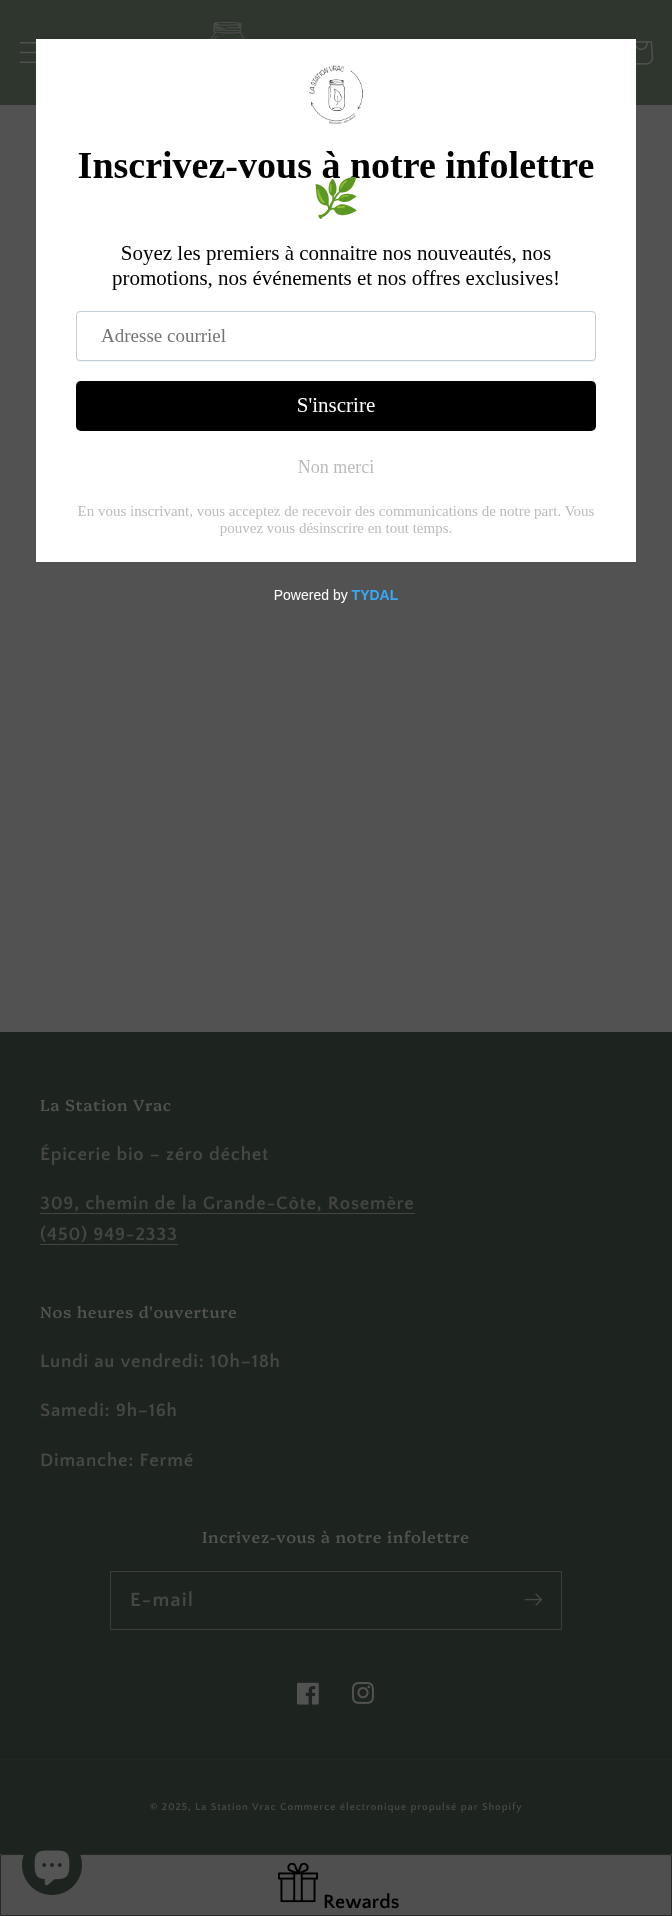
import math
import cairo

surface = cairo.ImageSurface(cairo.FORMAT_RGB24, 672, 1916)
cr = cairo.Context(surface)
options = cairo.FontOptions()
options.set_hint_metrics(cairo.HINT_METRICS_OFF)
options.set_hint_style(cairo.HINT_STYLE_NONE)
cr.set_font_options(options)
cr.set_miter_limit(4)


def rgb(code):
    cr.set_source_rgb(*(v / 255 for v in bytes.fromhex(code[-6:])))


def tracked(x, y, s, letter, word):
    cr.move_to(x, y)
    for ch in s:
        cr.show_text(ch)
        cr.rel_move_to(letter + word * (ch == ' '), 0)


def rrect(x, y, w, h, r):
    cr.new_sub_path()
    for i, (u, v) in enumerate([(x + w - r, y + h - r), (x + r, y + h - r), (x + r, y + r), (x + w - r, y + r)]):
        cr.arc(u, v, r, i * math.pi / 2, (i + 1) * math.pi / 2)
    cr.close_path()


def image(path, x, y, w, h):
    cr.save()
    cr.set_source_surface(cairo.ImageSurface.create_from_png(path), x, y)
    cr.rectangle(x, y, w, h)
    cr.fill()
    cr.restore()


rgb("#fcfafa")
cr.paint()
rgb("#8fa38a")
cr.rectangle(0, 0, 672, 105)
cr.fill()
image("img/1.png", 211, 22, 33, 17)
image("img/2.png", 19, 42, 17, 21)
image("img/3.png", 636, 41, 18, 24)
for x, y, w, h, color in [
    (0, 1032, 672, 822, "#586d5e"),
    (40, 1213, 375, 1, "#cbd0cb"),
    (40, 1244, 138, 1, "#cbd0cb"),
]:
    rgb(color)
    cr.rectangle(x, y, w, h)
    cr.fill()
cr.rectangle(110.5, 1571.5, 451, 58)
rgb("#b2bbb4")
cr.set_line_width(1)
cr.stroke()
image("img/5.png", 524, 1593, 18, 13)
image("img/6.png", 297, 1682, 22, 23)
image("img/7.png", 352, 1682, 22, 22)
rgb("#65786a")
cr.rectangle(0, 1759, 672, 1)
cr.fill()
rgb("#efefef")
rrect(0.5, 1854.5, 671, 61, 1.5)
cr.fill_preserve()
rgb("#767676")
cr.stroke()
rgb("#586d5e")
cr.arc(52, 1865, 30, 0, 2 * math.pi)
cr.fill()
image("img/8.png", 34, 1850, 36, 36)
image("img/9.png", 278, 1862, 40, 41)
cr.select_font_face("Platypi Medium")
cr.set_font_size(16)
rgb("#fcfafa")
tracked(40, 1111, "La Station Vrac", 0.6, 0)
cr.select_font_face("Quattrocento Sans", cairo.FONT_SLANT_NORMAL, cairo.FONT_WEIGHT_BOLD)
cr.set_font_size(18.75)
rgb("#d3d7d3")
tracked(40, 1160, "Épicerie bio – zéro déchet", 0.75, 0)
rgb("#cbd0cb")
tracked(40, 1209, "309, chemin de la Grande-Côte, Rosemère", 0.75, 0)
tracked(40, 1240, "(450) 949-2333", 0.75, 0)
cr.select_font_face("Platypi Medium")
cr.set_font_size(16)
rgb("#fcfafa")
tracked(40, 1318, "Nos heures d'ouverture", 0.6, 0)
cr.select_font_face("Quattrocento Sans", cairo.FONT_SLANT_NORMAL, cairo.FONT_WEIGHT_BOLD)
cr.set_font_size(18.75)
rgb("#d3d7d3")
for x, y, s in [
    (40, 1367, "Lundi au vendredi: 10h–18h"),
    (40, 1416, "Samedi: 9h–16h"),
    (40, 1466, "Dimanche: Fermé"),
]:
    tracked(x, y, s, 0.75, 0)
cr.select_font_face("Platypi Medium")
cr.set_font_size(16)
rgb("#fcfafa")
tracked(202, 1543, "Incrivez-vous à notre infolettre", 0.6, 0)
cr.select_font_face("Quattrocento Sans", cairo.FONT_SLANT_NORMAL, cairo.FONT_WEIGHT_BOLD)
cr.set_font_size(20)
rgb("#d3d7d3")
tracked(130, 1606, "E-mail", 1.25, 0)
cr.set_font_size(10.4)
tracked(150, 1810, "© 2025, La Station Vrac", 0.9, 0)
tracked(280, 1810, "Commerce électronique propulsé par Shopify", 0.9, 0)
cr.set_font_size(20)
rgb("#000000")
cr.move_to(323, 1908)
cr.show_text("Rewards")
image("img/4.png", 0, 0, 672, 1916)
surface.write_to_png("page.png")
